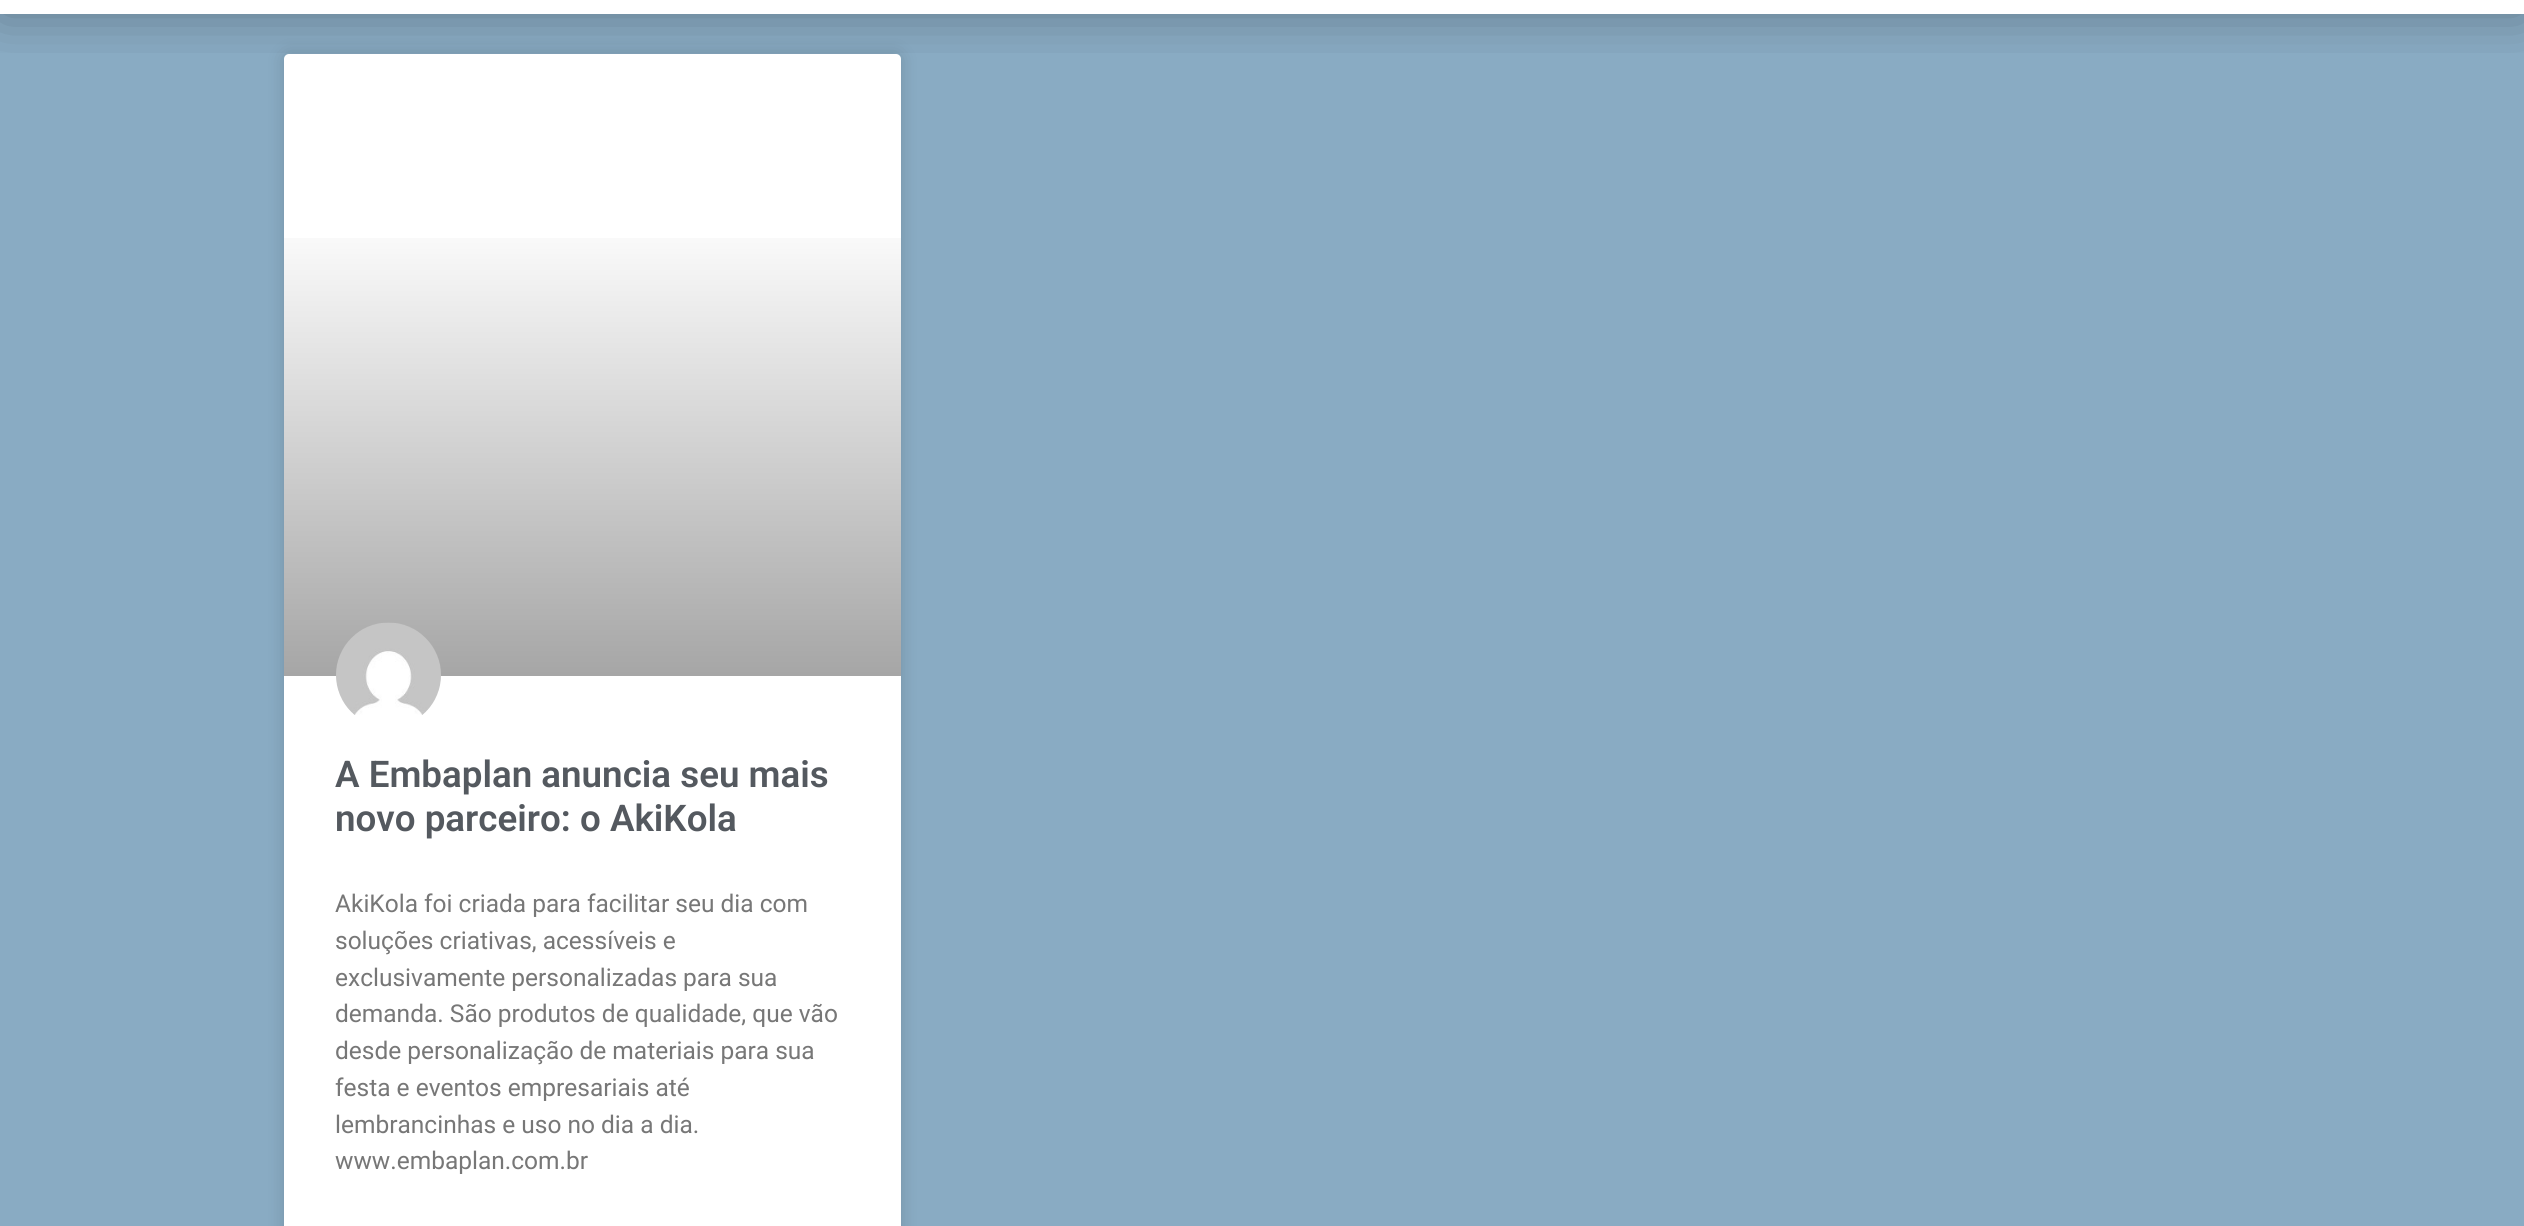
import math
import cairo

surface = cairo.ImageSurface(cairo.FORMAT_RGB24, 2524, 1226)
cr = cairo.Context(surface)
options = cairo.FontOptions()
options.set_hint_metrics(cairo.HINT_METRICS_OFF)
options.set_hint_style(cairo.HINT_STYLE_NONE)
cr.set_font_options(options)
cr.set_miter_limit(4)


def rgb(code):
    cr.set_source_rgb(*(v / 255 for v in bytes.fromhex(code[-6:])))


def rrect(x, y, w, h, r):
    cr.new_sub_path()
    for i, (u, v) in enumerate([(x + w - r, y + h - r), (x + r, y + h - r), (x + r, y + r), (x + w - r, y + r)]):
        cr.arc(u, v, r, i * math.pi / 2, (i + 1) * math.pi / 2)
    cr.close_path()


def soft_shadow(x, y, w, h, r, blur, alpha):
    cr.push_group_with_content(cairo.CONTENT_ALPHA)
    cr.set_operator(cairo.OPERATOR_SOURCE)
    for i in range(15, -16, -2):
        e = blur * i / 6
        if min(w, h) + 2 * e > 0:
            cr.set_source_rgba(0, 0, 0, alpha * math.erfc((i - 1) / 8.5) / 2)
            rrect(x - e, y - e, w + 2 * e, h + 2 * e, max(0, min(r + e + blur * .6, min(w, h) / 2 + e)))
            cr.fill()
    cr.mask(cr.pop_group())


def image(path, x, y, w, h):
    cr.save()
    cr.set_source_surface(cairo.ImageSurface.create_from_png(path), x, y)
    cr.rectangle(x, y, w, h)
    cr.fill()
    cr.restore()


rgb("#ffffff")
cr.paint()
rgb("#89abc3")
cr.rectangle(0, 14, 2524, 1212)
cr.fill()
rgb("#000000")
soft_shadow(284, 54, 617, 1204, 5, 9, 0.15)
rgb("#ffffff")
rrect(284, 54, 617, 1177, 5)
cr.fill()
cr.save()
cr.rectangle(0, 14, 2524, 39)
cr.clip()
rgb("#000000")
soft_shadow(0, -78, 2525, 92, 0, 26, 0.3)
cr.restore()
gradient = cairo.LinearGradient(592, 676, 592, 54)
gradient.add_color_stop_rgba(0, 0, 0, 0, 0.35)
gradient.add_color_stop_rgba(0.75, 0, 0, 0, 0)
cr.set_source(gradient)
cr.rectangle(284, 238, 617, 438)
cr.fill()
image("img/1.png", 336, 622, 105, 93)
cr.select_font_face("Roboto SemiBold")
cr.set_font_size(36.75)
rgb("#54595f")
cr.move_to(335, 787)
cr.show_text("A Embaplan anuncia seu mais")
cr.move_to(335, 831)
cr.show_text("novo parceiro: o AkiKola")
cr.select_font_face("Roboto")
cr.set_font_size(24.5)
rgb("#777777")
for x, y, s in [
    (335, 912, "AkiKola foi criada para facilitar seu dia com"),
    (335, 949, "soluções criativas, acessíveis e"),
    (335, 986, "exclusivamente personalizadas para sua"),
    (335, 1022, "demanda. São produtos de qualidade, que vão"),
    (335, 1059, "desde personalização de materiais para sua"),
    (335, 1096, "festa e eventos empresariais até"),
    (335, 1133, "lembrancinhas e uso no dia a dia."),
    (335, 1169, "www.embaplan.com.br"),
]:
    cr.move_to(x, y)
    cr.show_text(s)
surface.write_to_png("page.png")
